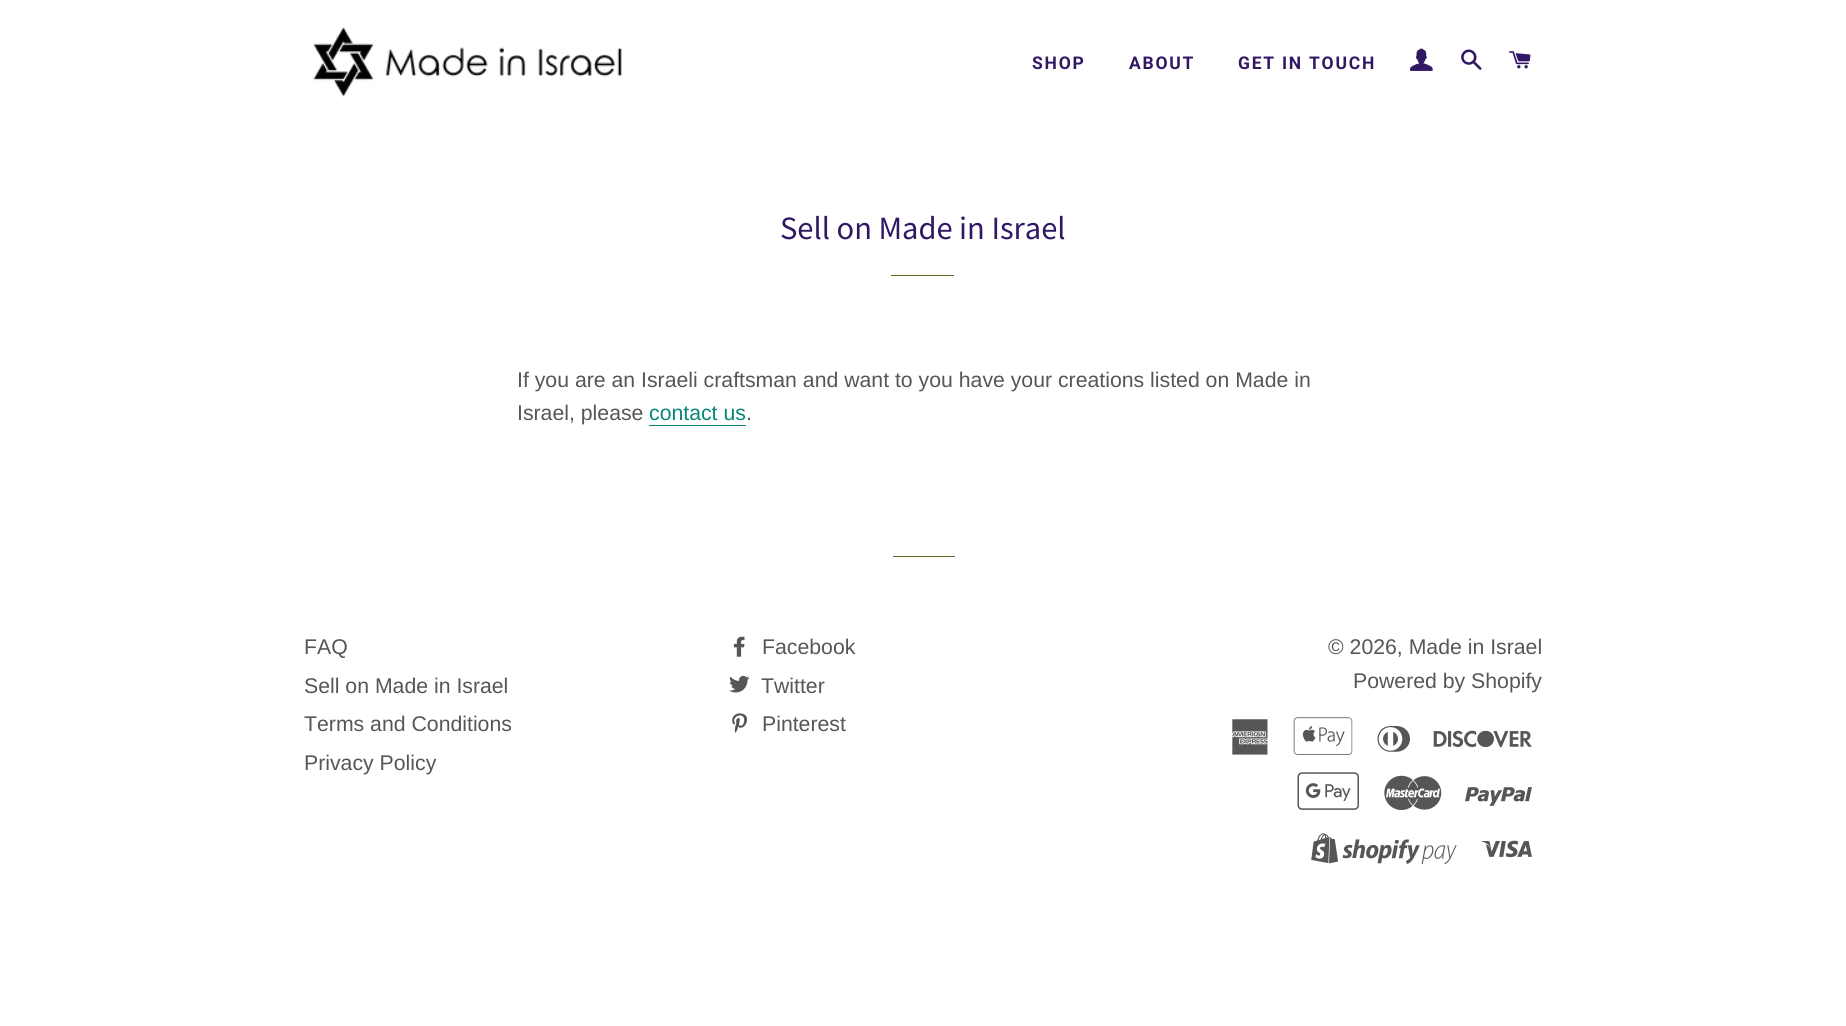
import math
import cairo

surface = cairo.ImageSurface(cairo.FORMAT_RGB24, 1846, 1026)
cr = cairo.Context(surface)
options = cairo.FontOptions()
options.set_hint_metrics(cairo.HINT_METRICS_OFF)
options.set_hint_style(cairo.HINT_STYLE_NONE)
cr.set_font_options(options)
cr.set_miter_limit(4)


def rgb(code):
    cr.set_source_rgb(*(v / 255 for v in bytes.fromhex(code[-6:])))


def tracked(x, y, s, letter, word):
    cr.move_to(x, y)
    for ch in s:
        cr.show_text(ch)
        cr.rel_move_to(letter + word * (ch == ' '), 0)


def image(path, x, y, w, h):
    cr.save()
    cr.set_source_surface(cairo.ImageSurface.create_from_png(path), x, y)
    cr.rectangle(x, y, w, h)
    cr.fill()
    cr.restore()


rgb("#ffffff")
cr.paint()
image("img/1.png", 313, 27, 309, 70)
image("img/2.png", 1410, 48, 23, 23)
image("img/3.png", 1461, 49, 21, 21)
image("img/4.png", 1509, 51, 22, 18)
for x, y, w, h, color in [
    (891, 275, 63, 1, "#646824"),
    (649, 425, 97, 1, "#058677"),
    (893, 556, 62, 1, "#646824"),
]:
    rgb(color)
    cr.rectangle(x, y, w, h)
    cr.fill()
image("img/5.png", 733, 636, 12, 21)
image("img/6.png", 729, 675, 21, 18)
image("img/7.png", 732, 713, 16, 20)
image("img/8.png", 1232, 719, 36, 36)
image("img/9.png", 1293, 717, 60, 38)
image("img/10.png", 1377, 726, 33, 26)
image("img/11.png", 1433, 730, 99, 18)
image("img/12.png", 1297, 772, 62, 38)
image("img/13.png", 1384, 775, 58, 36)
image("img/14.png", 1465, 787, 67, 19)
image("img/15.png", 1311, 833, 146, 32)
image("img/16.png", 1481, 840, 51, 18)
cr.select_font_face("Roboto", cairo.FONT_SLANT_NORMAL, cairo.FONT_WEIGHT_BOLD)
cr.set_font_size(17.5)
rgb("#321863")
for x, y, s in [
    (1032, 69, "SHOP"),
    (1129, 69, "ABOUT"),
    (1238, 69, "GET IN TOUCH"),
]:
    tracked(x, y, s, 1.75, 0)
cr.select_font_face("Source Sans Pro")
cr.set_font_size(32.5)
cr.move_to(780, 239)
cr.show_text("Sell on Made in Israel")
cr.select_font_face("Liberation Sans")
cr.set_font_size(21.25)
rgb("#565656")
cr.move_to(517, 387)
cr.show_text("If you are an Israeli craftsman and want to you have your creations listed on Made in")
cr.move_to(517, 420)
cr.show_text("Israel, please")
rgb("#058677")
cr.move_to(649, 420)
cr.show_text("contact us")
rgb("#565656")
for x, y, s in [
    (746, 420, "."),
    (304, 654, "FAQ"),
    (304, 693, "Sell on Made in Israel"),
    (304, 731, "Terms and Conditions"),
    (304, 770, "Privacy Policy"),
    (762, 654, "Facebook"),
    (761, 693, "Twitter"),
    (762, 731, "Pinterest"),
    (1328, 654, "© 2026, Made in Israel"),
    (1353, 688, "Powered by Shopify"),
]:
    cr.move_to(x, y)
    cr.show_text(s)
surface.write_to_png("page.png")
